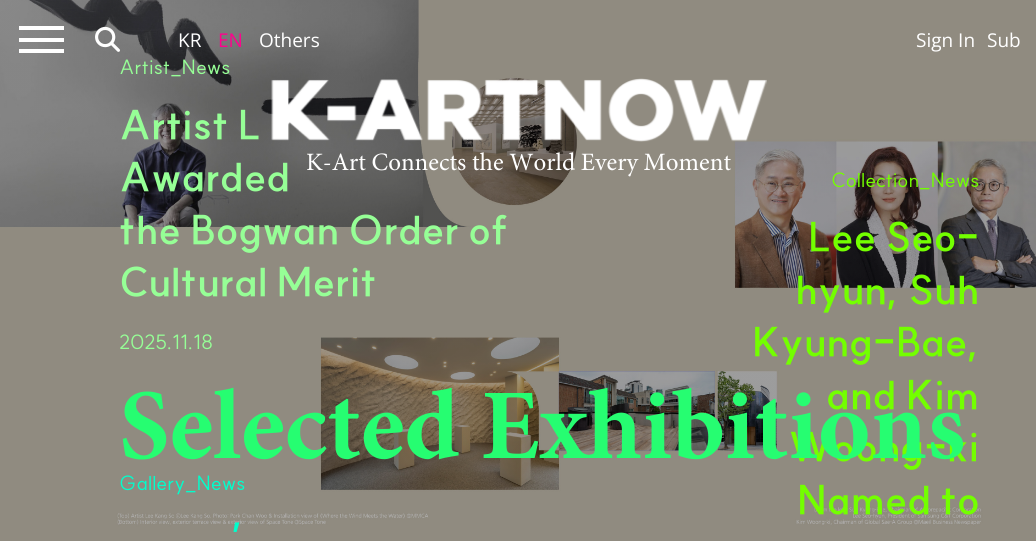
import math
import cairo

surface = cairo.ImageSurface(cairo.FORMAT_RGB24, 1036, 541)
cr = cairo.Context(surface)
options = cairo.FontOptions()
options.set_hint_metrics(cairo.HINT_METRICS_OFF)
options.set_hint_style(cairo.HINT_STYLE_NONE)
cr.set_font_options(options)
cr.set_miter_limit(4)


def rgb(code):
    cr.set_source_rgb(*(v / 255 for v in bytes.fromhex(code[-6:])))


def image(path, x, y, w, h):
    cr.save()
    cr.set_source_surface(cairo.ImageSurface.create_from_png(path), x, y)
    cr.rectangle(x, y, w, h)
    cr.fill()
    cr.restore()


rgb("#ffffff")
cr.paint()
image("img/3.png", 0, 0, 1036, 541)
for x, y, w, h, color in [
    (19, 26, 45, 4, "#ffffff"),
    (19, 38, 45, 4, "#ffffff"),
    (19, 49, 45, 4, "#ffffff"),
]:
    rgb(color)
    cr.rectangle(x, y, w, h)
    cr.fill()
image("img/1.png", 95, 26, 25, 26)
image("img/2.png", 271, 78, 496, 64)
cr.select_font_face("Open Sans")
cr.set_font_size(19)
cr.move_to(178, 47)
cr.show_text("KR")
rgb("#ff028d")
cr.move_to(218, 47)
cr.show_text("EN")
rgb("#ffffff")
for x, y, s in [
    (259, 47, "Others"),
    (916, 47, "Sign In"),
    (987, 47, "Sub"),
]:
    cr.move_to(x, y)
    cr.show_text(s)
cr.select_font_face("Minion")
cr.set_font_size(25)
cr.move_to(306, 170)
cr.show_text("K-Art Connects the World Every Moment")
cr.select_font_face("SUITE")
cr.set_font_size(20)
rgb("#96ff96")
cr.move_to(119, 74)
cr.show_text("Artist_News")
cr.select_font_face("SUITE", cairo.FONT_SLANT_NORMAL, cairo.FONT_WEIGHT_BOLD)
cr.set_font_size(40)
for x, y, s in [
    (119, 139, "Artist L"),
    (119, 191, "Awarded"),
    (119, 244, "the Bogwan Order of"),
    (119, 296, "Cultural Merit"),
]:
    cr.move_to(x, y)
    cr.show_text(s)
cr.select_font_face("SUITE")
cr.set_font_size(20)
cr.move_to(119, 349)
cr.show_text("2025.11.18")
rgb("#73ff00")
cr.move_to(831, 187)
cr.show_text("Collection_News")
cr.select_font_face("SUITE", cairo.FONT_SLANT_NORMAL, cairo.FONT_WEIGHT_BOLD)
cr.set_font_size(40)
for x, y, s in [
    (808, 251, "Lee Seo-"),
    (795, 304, "hyun, Suh"),
    (752, 356, "Kyung-Bae,"),
    (826, 409, "and Kim"),
    (788, 461, "Woong-ki"),
    (797, 514, "Named to"),
]:
    cr.move_to(x, y)
    cr.show_text(s)
cr.select_font_face("SUITE")
cr.set_font_size(20)
rgb("#00ffcc")
cr.move_to(119, 490)
cr.show_text("Gallery_News")
cr.select_font_face("SUITE", cairo.FONT_SLANT_NORMAL, cairo.FONT_WEIGHT_BOLD)
cr.set_font_size(40)
cr.move_to(231, 554)
cr.show_text("’")
cr.select_font_face("Minion", cairo.FONT_SLANT_NORMAL, cairo.FONT_WEIGHT_BOLD)
cr.set_font_size(100)
rgb("#26fd71")
cr.move_to(119, 458)
cr.show_text("Selected Exhibitions")
surface.write_to_png("page.png")
